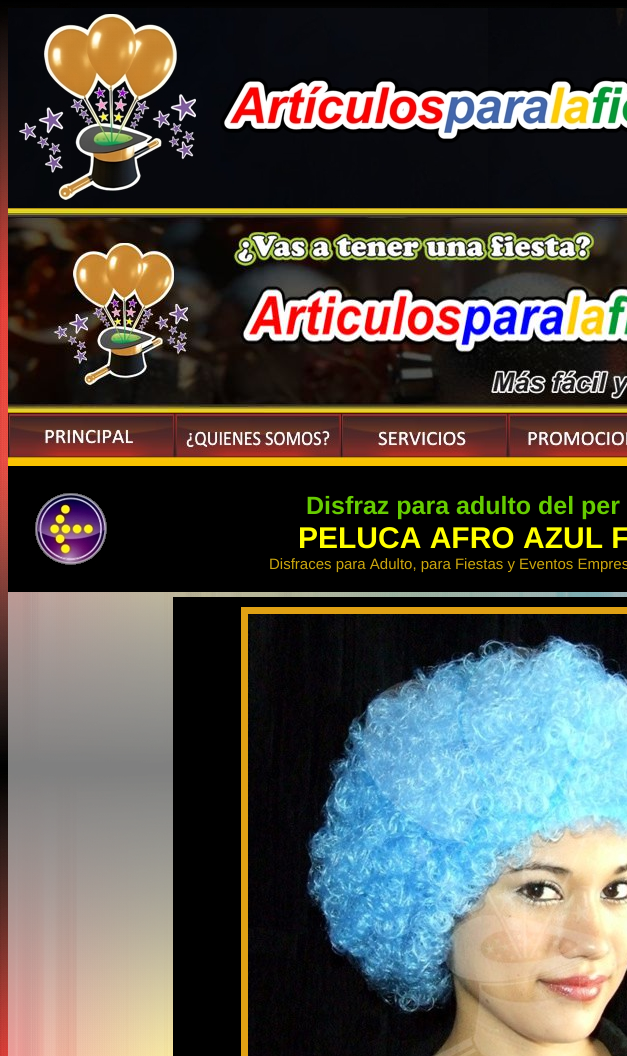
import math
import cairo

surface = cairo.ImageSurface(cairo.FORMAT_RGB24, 627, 1056)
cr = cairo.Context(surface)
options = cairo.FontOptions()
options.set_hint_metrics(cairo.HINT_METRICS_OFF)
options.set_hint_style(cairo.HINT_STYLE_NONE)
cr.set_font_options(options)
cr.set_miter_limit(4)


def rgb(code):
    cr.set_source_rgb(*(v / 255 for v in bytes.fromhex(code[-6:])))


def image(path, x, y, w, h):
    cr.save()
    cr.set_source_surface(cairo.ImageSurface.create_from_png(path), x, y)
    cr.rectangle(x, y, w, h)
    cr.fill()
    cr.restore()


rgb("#ffffff")
cr.paint()
image("img/1.png", 0, 0, 627, 1056)
image("img/2.png", 8, 8, 619, 200)
image("img/3.png", 8, 208, 619, 205)
image("img/4.png", 8, 413, 167, 53)
image("img/5.png", 175, 413, 166, 53)
image("img/6.png", 341, 413, 167, 53)
image("img/7.png", 508, 413, 119, 53)
rgb("#000000")
cr.rectangle(8, 466, 619, 126)
cr.fill()
image("img/8.png", 35, 493, 72, 72)
cr.rectangle(173, 597, 454, 459)
cr.fill()
rgb("#e0a114")
cr.rectangle(241, 607, 386, 449)
cr.fill()
image("img/9.png", 248, 614, 379, 442)
cr.select_font_face("Liberation Sans", cairo.FONT_SLANT_NORMAL, cairo.FONT_WEIGHT_BOLD)
cr.set_font_size(25)
rgb("#66cc00")
cr.move_to(306, 514)
cr.show_text("Disfraz para adulto del per")
cr.set_font_size(30)
rgb("#ffff00")
cr.move_to(298, 548)
cr.show_text("PELUCA AFRO AZUL F")
cr.select_font_face("Liberation Sans")
cr.set_font_size(15)
rgb("#cba60d")
cr.move_to(269, 569)
cr.show_text("Disfraces para Adulto, para Fiestas y Eventos Empres")
surface.write_to_png("page.png")
